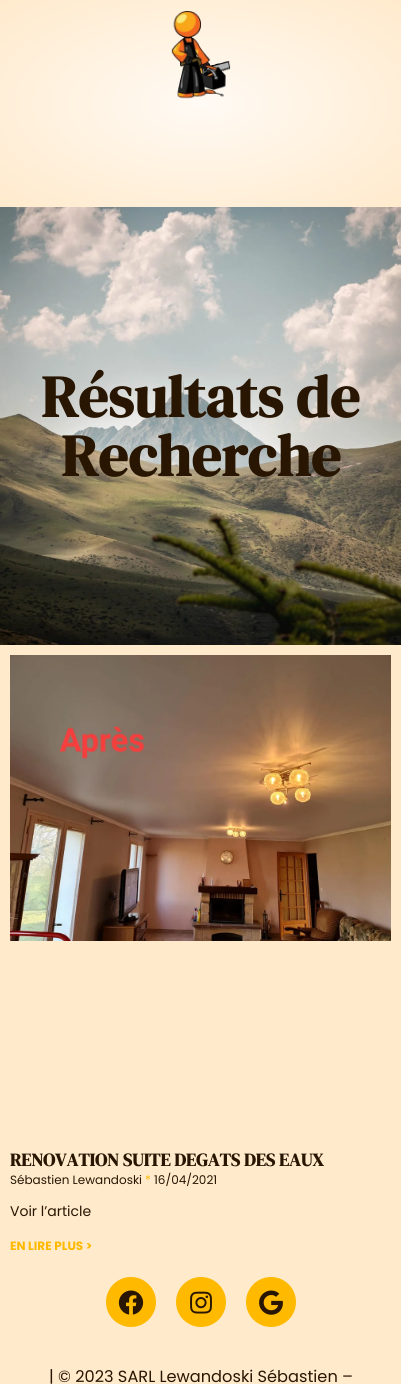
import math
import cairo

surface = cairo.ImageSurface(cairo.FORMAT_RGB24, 401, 1384)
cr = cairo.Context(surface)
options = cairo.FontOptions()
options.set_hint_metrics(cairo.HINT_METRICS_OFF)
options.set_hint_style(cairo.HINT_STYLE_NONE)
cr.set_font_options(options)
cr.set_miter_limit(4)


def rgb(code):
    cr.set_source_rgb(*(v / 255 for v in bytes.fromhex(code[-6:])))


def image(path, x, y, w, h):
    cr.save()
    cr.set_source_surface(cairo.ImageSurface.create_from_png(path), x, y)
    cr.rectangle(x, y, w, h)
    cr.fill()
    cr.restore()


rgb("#ffeacc")
cr.paint()
gradient = cairo.RadialGradient(0, 0, 0, 0, 0, 1)
gradient.set_matrix(cairo.Matrix(1 / 284, 0, 0, 1 / 146, -1 * 201 / 284, -1 * 104 / 146))
gradient.add_color_stop_rgba(0, 1, 0.98, 0.957, 1)
gradient.add_color_stop_rgba(1, 1, 0.918, 0.8, 1)
cr.set_source(gradient)
cr.rectangle(0, 0, 401, 207)
cr.fill()
image("img/1.png", 171, 11, 60, 88)
image("img/2.png", 0, 207, 401, 438)
image("img/3.png", 10, 655, 381, 286)
rgb("#ffba00")
cr.arc(131, 1302, 25, 0, 2 * math.pi)
cr.fill()
image("img/4.png", 118, 1290, 26, 25)
cr.arc(201, 1302, 25, 0, 2 * math.pi)
cr.fill()
image("img/5.png", 190, 1291, 22, 23)
cr.arc(271, 1302, 25, 0, 2 * math.pi)
cr.fill()
image("img/6.png", 259, 1290, 24, 25)
cr.select_font_face("DM Serif Display", cairo.FONT_SLANT_NORMAL, cairo.FONT_WEIGHT_BOLD)
cr.set_font_size(59)
rgb("#281602")
cr.move_to(41, 417)
cr.show_text("Résultats de")
cr.move_to(61, 476)
cr.show_text("Recherche")
cr.set_font_size(18)
cr.move_to(10, 1166)
cr.show_text("RENOVATION SUITE DEGATS DES EAUX")
cr.select_font_face("Poppins")
cr.set_font_size(12)
cr.move_to(10, 1184)
cr.show_text("Sébastien Lewandoski")
rgb("#ffba00")
cr.move_to(145, 1184)
cr.show_text("*")
rgb("#281602")
cr.move_to(154, 1184)
cr.show_text("16/04/2021")
cr.set_font_size(14)
cr.move_to(10, 1216)
cr.show_text("Voir l’article")
cr.select_font_face("Poppins", cairo.FONT_SLANT_NORMAL, cairo.FONT_WEIGHT_BOLD)
cr.set_font_size(12)
rgb("#ffba00")
cr.move_to(10, 1250)
cr.show_text("EN LIRE PLUS >")
cr.select_font_face("Poppins")
cr.set_font_size(16.2)
rgb("#281602")
cr.move_to(49, 1382)
cr.show_text("| © 2023 SARL Lewandoski Sébastien –")
surface.write_to_png("page.png")
